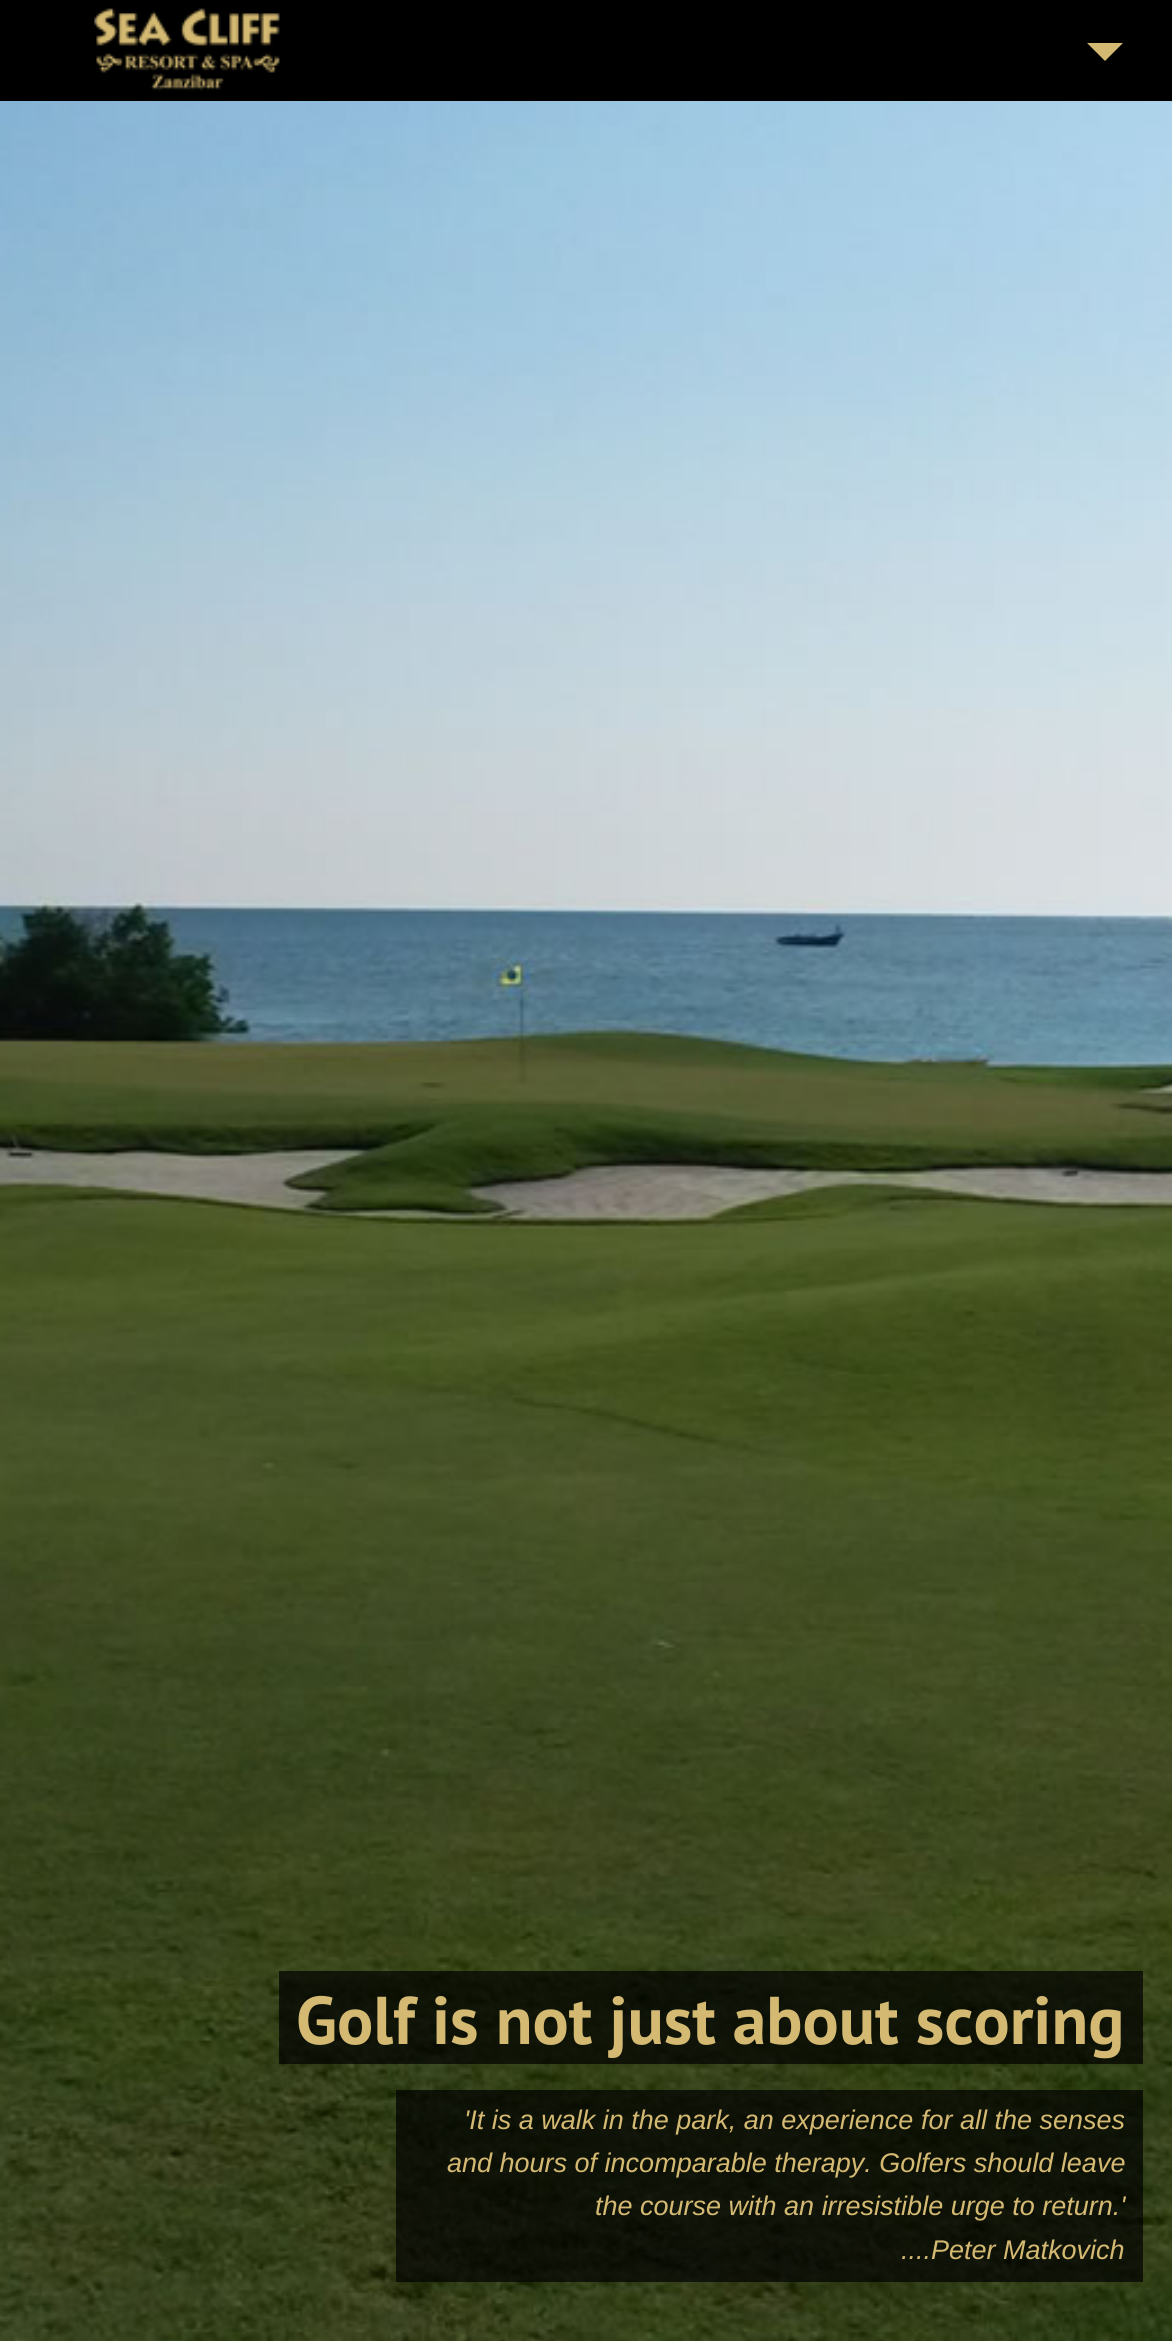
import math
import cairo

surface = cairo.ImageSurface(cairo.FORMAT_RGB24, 1172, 2341)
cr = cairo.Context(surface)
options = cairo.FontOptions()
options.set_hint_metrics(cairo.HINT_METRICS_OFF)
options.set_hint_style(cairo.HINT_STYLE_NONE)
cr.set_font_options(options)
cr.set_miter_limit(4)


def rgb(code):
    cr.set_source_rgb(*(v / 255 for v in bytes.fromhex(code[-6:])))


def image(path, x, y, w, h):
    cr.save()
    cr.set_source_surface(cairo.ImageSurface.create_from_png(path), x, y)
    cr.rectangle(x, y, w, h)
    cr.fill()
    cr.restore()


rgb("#ffffff")
cr.paint()
rgb("#000000")
cr.rectangle(0, 0, 1172, 101)
cr.fill()
image("img/1.png", 94, 8, 186, 83)
rgb("#d4b972")
cr.new_path()
cr.move_to(1087, 43)
cr.line_to(1123, 43)
cr.line_to(1105, 61)
cr.close_path()
cr.fill()
image("img/2.png", 0, 101, 1172, 2240)
cr.set_source_rgba(0, 0, 0, 0.7)
cr.rectangle(279, 1971, 864, 93)
cr.fill()
cr.rectangle(396, 2090, 747, 192)
cr.fill()
cr.select_font_face("PT Sans", cairo.FONT_SLANT_NORMAL, cairo.FONT_WEIGHT_BOLD)
cr.set_font_size(67.5)
rgb("#d4b972")
cr.move_to(296, 2044)
cr.show_text("Golf is not just about scoring")
cr.select_font_face("Liberation Sans", cairo.FONT_SLANT_ITALIC)
cr.set_font_size(27)
for x, y, s in [
    (464, 2129, "'It is a walk in the park, an experience for all the senses"),
    (447, 2172, "and hours of incomparable therapy. Golfers should leave"),
    (595, 2215, "the course with an irresistible urge to return.'"),
    (901, 2259, "....Peter Matkovich"),
]:
    cr.move_to(x, y)
    cr.show_text(s)
surface.write_to_png("page.png")
